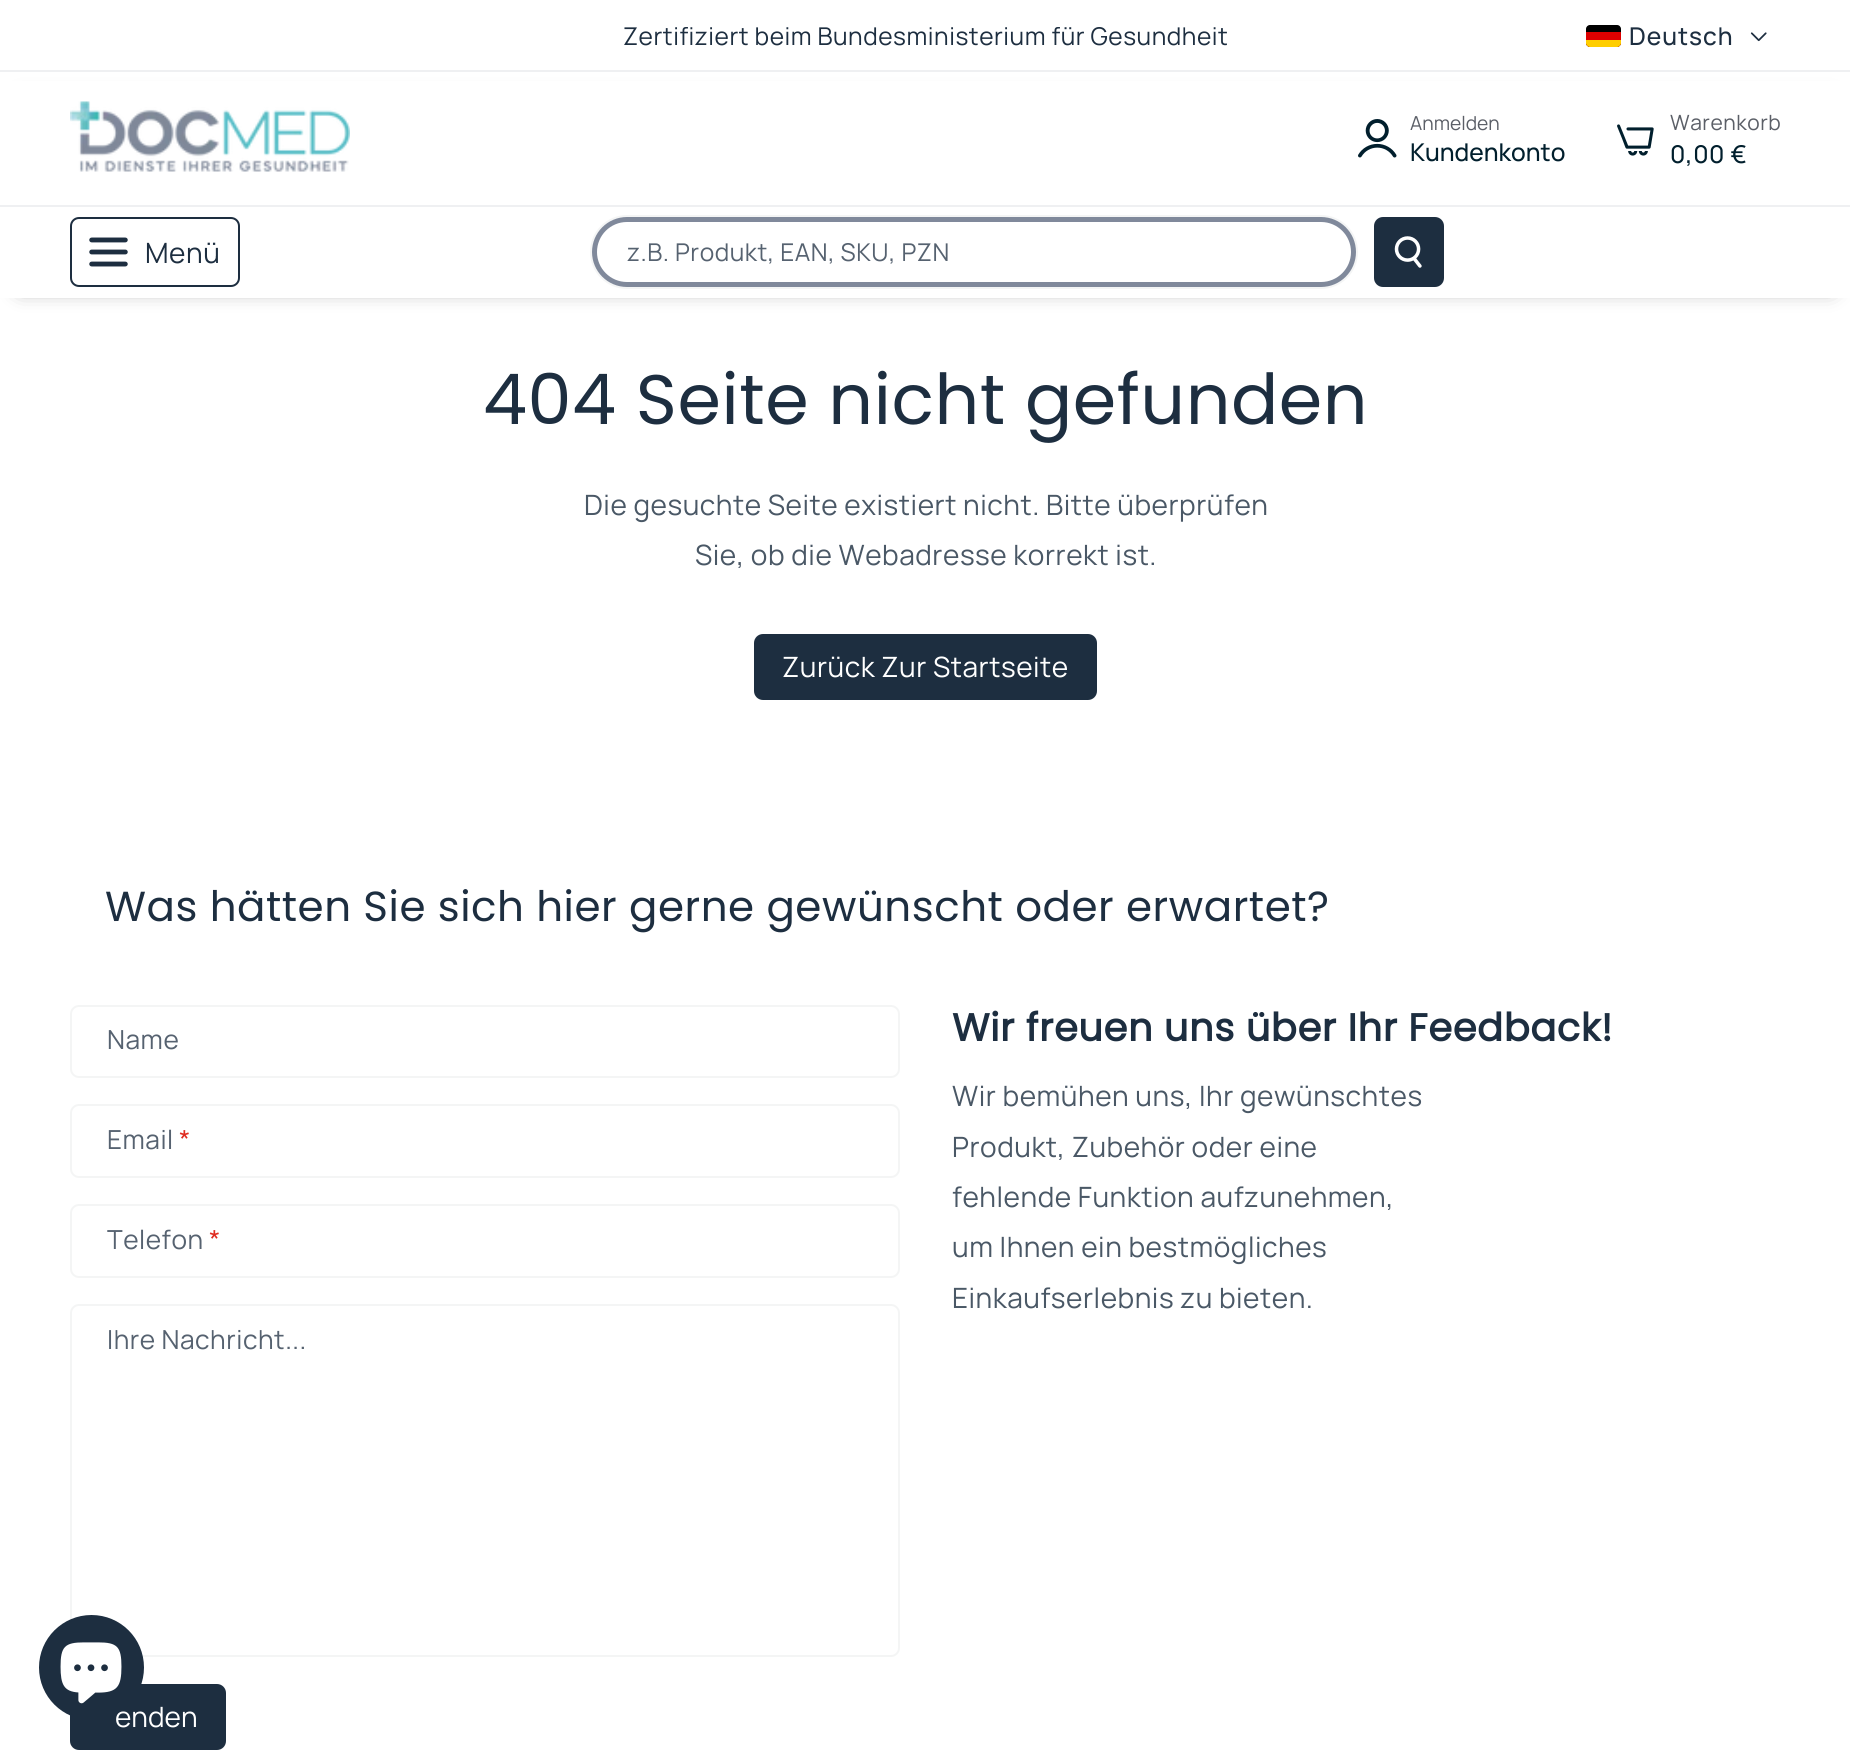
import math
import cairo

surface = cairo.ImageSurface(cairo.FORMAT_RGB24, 1850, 1757)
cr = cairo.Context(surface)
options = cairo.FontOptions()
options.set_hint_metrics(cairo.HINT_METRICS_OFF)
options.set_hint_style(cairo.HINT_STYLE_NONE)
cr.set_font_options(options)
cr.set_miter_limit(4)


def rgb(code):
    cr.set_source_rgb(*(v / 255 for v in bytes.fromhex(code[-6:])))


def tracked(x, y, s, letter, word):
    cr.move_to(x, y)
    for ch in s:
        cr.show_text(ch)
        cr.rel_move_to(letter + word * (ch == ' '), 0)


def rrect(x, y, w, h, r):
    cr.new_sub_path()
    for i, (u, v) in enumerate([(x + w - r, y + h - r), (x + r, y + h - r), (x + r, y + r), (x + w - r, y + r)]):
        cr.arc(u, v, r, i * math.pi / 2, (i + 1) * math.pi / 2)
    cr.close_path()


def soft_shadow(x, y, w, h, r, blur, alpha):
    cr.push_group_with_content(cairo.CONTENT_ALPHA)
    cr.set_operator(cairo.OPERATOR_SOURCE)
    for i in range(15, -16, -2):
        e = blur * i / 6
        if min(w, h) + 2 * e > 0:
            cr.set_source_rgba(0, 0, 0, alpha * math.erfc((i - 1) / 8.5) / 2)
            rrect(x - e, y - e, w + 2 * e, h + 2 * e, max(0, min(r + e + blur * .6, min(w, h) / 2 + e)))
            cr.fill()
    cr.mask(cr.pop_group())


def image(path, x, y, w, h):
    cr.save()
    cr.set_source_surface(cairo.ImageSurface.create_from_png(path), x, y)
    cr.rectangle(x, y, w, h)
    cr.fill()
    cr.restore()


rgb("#ffffff")
cr.paint()
rgb("#eff0f2")
cr.rectangle(0, 70, 1850, 2)
cr.fill()
rgb("#000000")
rrect(1586, 25, 35, 22, 4)
cr.fill()
rgb("#dd0000")
cr.new_path()
cr.move_to(1586, 32)
cr.line_to(1621, 32)
cr.line_to(1621, 43)
cr.curve_to(1621, 45, 1619, 47, 1617, 47)
cr.line_to(1590, 47)
cr.curve_to(1588, 47, 1586, 45, 1586, 43)
cr.close_path()
cr.fill()
rgb("#ffce00")
cr.new_path()
cr.move_to(1586, 40)
cr.line_to(1621, 40)
cr.line_to(1621, 43)
cr.curve_to(1621, 45, 1619, 47, 1617, 47)
cr.line_to(1590, 47)
cr.curve_to(1588, 47, 1586, 45, 1586, 43)
cr.close_path()
cr.fill()
image("img/1.png", 1750, 32, 17, 10)
rgb("#121212")
soft_shadow(21, 103, 1810, 184, 0, 10.5, 0.6)
rgb("#ffffff")
cr.rectangle(0, 81, 1850, 217)
cr.fill()
image("img/2.png", 70, 101, 280, 71)
image("img/3.png", 1358, 119, 39, 39)
image("img/4.png", 1617, 124, 37, 32)
rgb("#eff0f2")
cr.rectangle(0, 205, 1850, 2)
cr.fill()
rrect(71, 218, 168, 68, 8)
rgb("#1d2e40")
cr.stroke()
image("img/5.png", 89, 237, 39, 30)
rrect(591, 216, 766, 72, 36)
rgb("#f4f5f5")
cr.stroke()
rrect(594.5, 219.5, 759, 65, 32.5)
rgb("#80899b")
cr.set_line_width(5)
cr.stroke()
rgb("#1d2e40")
rrect(1374, 217, 70, 70, 9)
cr.fill()
image("img/6.png", 1394, 236, 28, 32)
rrect(754, 634, 343, 66, 9)
cr.fill()
rrect(71, 1006, 828, 71, 8)
rgb("#f4f5f5")
cr.set_line_width(2)
cr.stroke()
rrect(71, 1105, 828, 72, 8)
cr.stroke()
rrect(71, 1205, 828, 72, 8)
cr.stroke()
rrect(71, 1305, 828, 351, 8)
cr.stroke()
rgb("#1d2e40")
rrect(70, 1684, 156, 66, 9)
cr.fill()
cr.select_font_face("Manrope")
cr.set_font_size(24.5)
tracked(623, 45, "Zertifiziert beim Bundesministerium für Gesundheit", 0.53, 0)
cr.select_font_face("Manrope Medium")
tracked(1629, 45, "Deutsch", 1, 0)
cr.select_font_face("Manrope")
cr.set_font_size(19.25)
rgb("#5b5f67")
cr.move_to(1410, 130)
cr.show_text("Anmelden")
cr.select_font_face("Manrope Medium")
cr.set_font_size(24.5)
rgb("#011f2d")
cr.move_to(1410, 161)
cr.show_text("Kundenkonto")
cr.select_font_face("Manrope")
cr.set_font_size(21)
rgb("#5b5f67")
tracked(1670, 130, "Warenkorb", 0.53, 0)
cr.select_font_face("Manrope Medium")
cr.set_font_size(24.5)
rgb("#011f2d")
tracked(1670, 163, "0,00 €", 0.53, 0)
cr.select_font_face("Manrope")
cr.set_font_size(28)
rgb("#1d2e40")
tracked(145, 263, "Menü", 0.53, 0)
cr.set_font_size(24.5)
rgb("#566270")
tracked(627, 261, "z.B. Produkt, EAN, SKU, PZN", 0.53, 0)
cr.select_font_face("Poppins")
cr.set_font_size(70)
rgb("#1d2e40")
tracked(483, 424, "404 Seite nicht gefunden", 0.53, 0)
cr.select_font_face("Manrope")
cr.set_font_size(28)
rgb("#4a5866")
tracked(584, 515, "Die gesuchte Seite existiert nicht. Bitte überprüfen", 0.53, 0)
tracked(695, 565, "Sie, ob die Webadresse korrekt ist.", 0.53, 0)
rgb("#ffffff")
tracked(782, 677, "Zurück Zur Startseite", 0.53, 0)
cr.select_font_face("Poppins")
cr.set_font_size(42)
rgb("#1d2e40")
tracked(105, 921, "Was hätten Sie sich hier gerne gewünscht oder erwartet?", 0.53, 0)
cr.select_font_face("Manrope")
cr.set_font_size(26.25)
rgb("#566270")
tracked(107, 1049, "Name", 0.53, 0)
tracked(107, 1149, "Email", 0.53, 0)
rgb("#df2c21")
tracked(179, 1149, "*", 0.53, 0)
rgb("#566270")
tracked(107, 1249, "Telefon", 0.53, 0)
rgb("#df2c21")
tracked(209, 1249, "*", 0.53, 0)
rgb("#566270")
tracked(107, 1349, "Ihre Nachricht...", 0.53, 0)
cr.set_font_size(28)
rgb("#ffffff")
cr.move_to(115, 1727)
cr.show_text("enden")
rgb("#1d2e40")
cr.new_path()
cr.arc(91.5, 1667.5, 52.5, 0, 2 * math.pi)
cr.fill()
image("img/7.png", 60, 1642, 62, 62)
cr.select_font_face("Poppins", cairo.FONT_SLANT_NORMAL, cairo.FONT_WEIGHT_BOLD)
cr.set_font_size(38.5)
tracked(952, 1041, "Wir freuen uns über Ihr Feedback!", 0.53, 0)
cr.select_font_face("Manrope")
cr.set_font_size(28)
rgb("#4a5866")
for x, y, s in [
    (952, 1106, "Wir bemühen uns, Ihr gewünschtes"),
    (952, 1157, "Produkt, Zubehör oder eine"),
    (952, 1207, "fehlende Funktion aufzunehmen,"),
    (952, 1257, "um Ihnen ein bestmögliches"),
    (952, 1308, "Einkaufserlebnis zu bieten."),
]:
    tracked(x, y, s, 0.53, 0)
surface.write_to_png("page.png")
